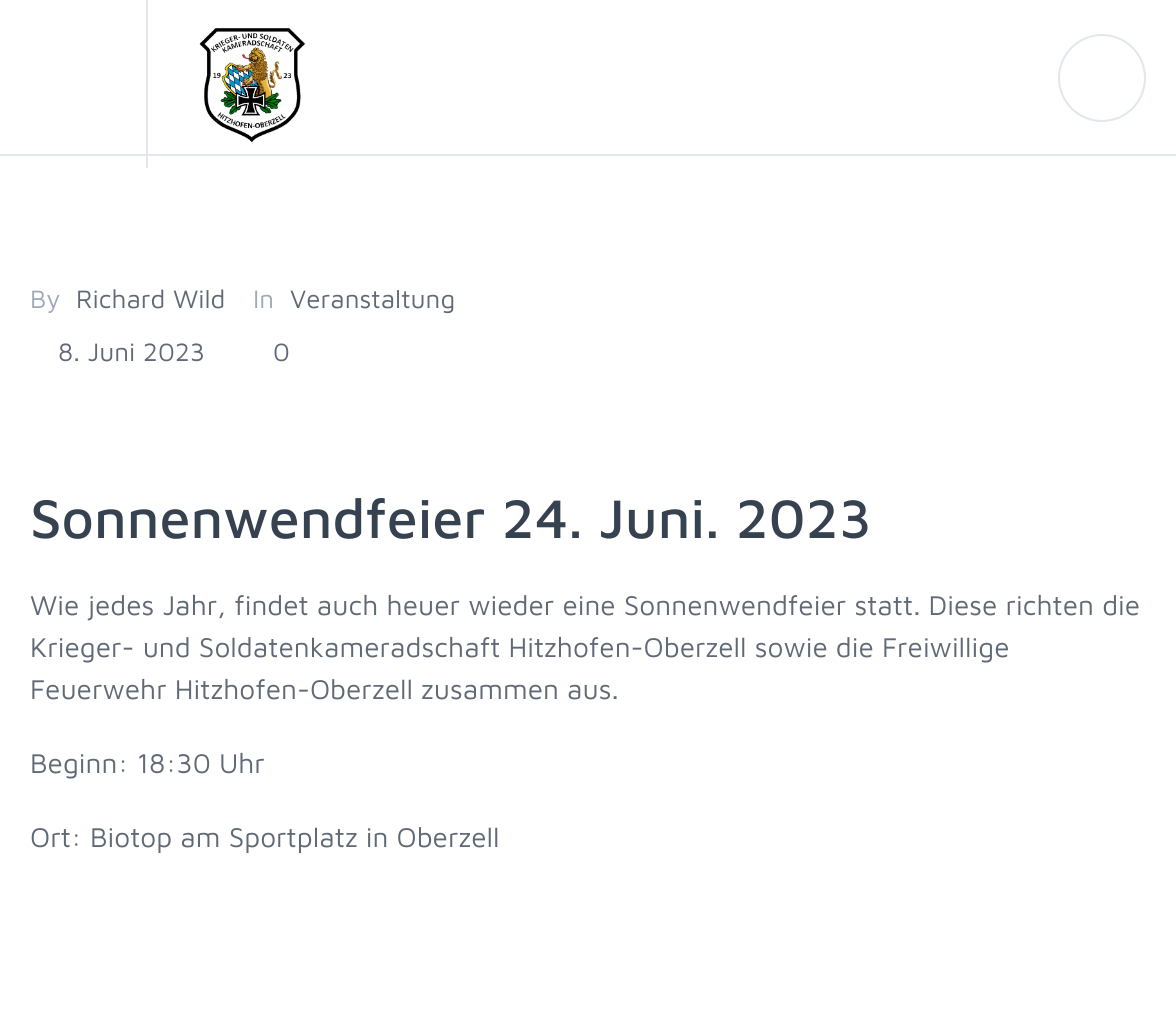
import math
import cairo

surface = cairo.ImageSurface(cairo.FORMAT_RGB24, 1176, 1034)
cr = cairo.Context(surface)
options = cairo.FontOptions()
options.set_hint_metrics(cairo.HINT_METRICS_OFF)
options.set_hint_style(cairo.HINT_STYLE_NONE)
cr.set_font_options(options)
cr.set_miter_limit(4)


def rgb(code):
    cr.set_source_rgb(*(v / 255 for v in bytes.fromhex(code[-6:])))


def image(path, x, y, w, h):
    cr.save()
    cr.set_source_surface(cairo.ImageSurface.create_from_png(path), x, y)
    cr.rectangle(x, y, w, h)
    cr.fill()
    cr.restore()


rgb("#ffffff")
cr.paint()
rgb("#e1e7ec")
cr.rectangle(0, 154, 1176, 2)
cr.fill()
cr.rectangle(146, 0, 2, 168)
cr.fill()
image("img/1.png", 199, 28, 107, 114)
cr.arc(1102, 78, 43, 0, 2 * math.pi)
cr.stroke()
cr.select_font_face("Maven Pro")
cr.set_font_size(26)
rgb("#9da9b9")
cr.move_to(30, 308)
cr.show_text("By")
rgb("#606975")
cr.move_to(76, 308)
cr.show_text("Richard Wild")
rgb("#9da9b9")
cr.move_to(253, 308)
cr.show_text("In")
rgb("#606975")
for x, y, s in [
    (290, 308, "Veranstaltung"),
    (58, 361, "8. Juni 2023"),
    (273, 361, "0"),
]:
    cr.move_to(x, y)
    cr.show_text(s)
cr.select_font_face("Maven Pro Medium")
cr.set_font_size(56)
rgb("#374250")
cr.move_to(30, 538)
cr.show_text("Sonnenwendfeier 24. Juni. 2023")
cr.select_font_face("Maven Pro")
cr.set_font_size(28)
rgb("#606975")
for x, y, s in [
    (30, 615, "Wie jedes Jahr, findet auch heuer wieder eine Sonnenwendfeier statt. Diese richten die"),
    (30, 657, "Krieger- und Soldatenkameradschaft Hitzhofen-Oberzell sowie die Freiwillige"),
    (30, 699, "Feuerwehr Hitzhofen-Oberzell zusammen aus."),
    (30, 773, "Beginn: 18:30 Uhr"),
    (30, 847, "Ort: Biotop am Sportplatz in Oberzell"),
]:
    cr.move_to(x, y)
    cr.show_text(s)
surface.write_to_png("page.png")
